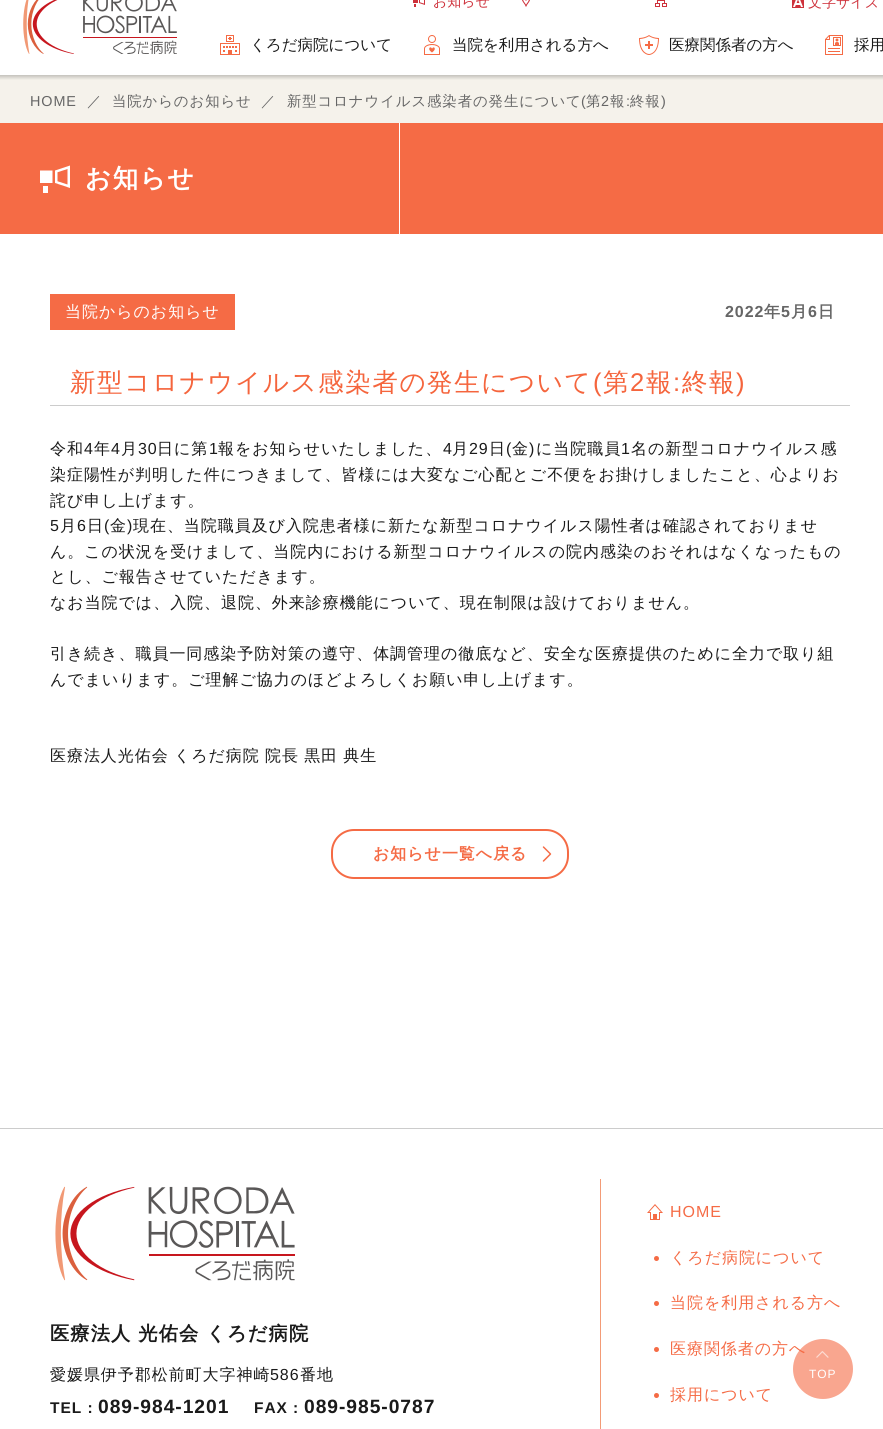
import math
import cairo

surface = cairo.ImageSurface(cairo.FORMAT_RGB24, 883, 1429)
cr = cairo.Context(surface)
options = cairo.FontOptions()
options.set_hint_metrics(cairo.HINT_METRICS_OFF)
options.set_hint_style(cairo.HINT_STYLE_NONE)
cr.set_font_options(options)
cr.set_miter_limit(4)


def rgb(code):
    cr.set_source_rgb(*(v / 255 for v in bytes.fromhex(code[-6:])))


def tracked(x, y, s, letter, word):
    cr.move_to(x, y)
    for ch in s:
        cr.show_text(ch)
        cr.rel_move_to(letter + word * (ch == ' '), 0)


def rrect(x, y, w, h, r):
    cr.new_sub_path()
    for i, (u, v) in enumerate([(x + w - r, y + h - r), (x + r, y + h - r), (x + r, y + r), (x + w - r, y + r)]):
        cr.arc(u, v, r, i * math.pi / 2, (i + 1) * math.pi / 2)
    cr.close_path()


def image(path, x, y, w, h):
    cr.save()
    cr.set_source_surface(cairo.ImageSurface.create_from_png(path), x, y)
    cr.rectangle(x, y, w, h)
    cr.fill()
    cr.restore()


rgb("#ffffff")
cr.paint()
image("img/1.png", 23, 0, 154, 54)
image("img/2.png", 413, 0, 12, 7)
image("img/3.png", 522, 0, 8, 7)
image("img/4.png", 655, 0, 12, 7)
image("img/5.png", 792, 0, 12, 8)
image("img/6.png", 220, 35, 20, 20)
image("img/7.png", 424, 35, 16, 20)
image("img/8.png", 639, 35, 20, 20)
image("img/9.png", 825, 35, 18, 20)
gradient = cairo.LinearGradient(600, 75, 600, 80)
gradient.add_color_stop_rgba(0, 0.769, 0.761, 0.737, 1)
gradient.add_color_stop_rgba(1, 0.961, 0.949, 0.922, 1)
cr.set_source(gradient)
cr.rectangle(0, 75, 883, 5)
cr.fill()
for x, y, w, h, color in [
    (0, 80, 883, 43, "#f5f2eb"),
    (0, 1128, 883, 1, "#cccccc"),
    (0, 123, 883, 111, "#f56b45"),
    (399, 123, 1, 111, "#ffffff"),
]:
    rgb(color)
    cr.rectangle(x, y, w, h)
    cr.fill()
image("img/10.png", 40, 165, 30, 28)
rgb("#f56b45")
cr.rectangle(50, 294, 185, 36)
cr.fill()
rgb("#cccccc")
cr.rectangle(50, 405, 800, 1)
cr.fill()
rrect(332, 830, 236, 48, 22)
rgb("#f56b45")
cr.stroke()
image("img/11.png", 542, 846, 10, 16)
rgb("#f39b76")
cr.rectangle(600, 1179, 1, 250)
cr.fill()
image("img/12.png", 55, 1186, 240, 95)
image("img/13.png", 647, 1204, 16, 16)
rgb("#f56b45")
cr.arc(656.5, 1258.5, 2.5, 0, 2 * math.pi)
cr.fill()
cr.arc(656.5, 1303.5, 2.5, 0, 2 * math.pi)
cr.fill()
cr.arc(656.5, 1349.5, 2.5, 0, 2 * math.pi)
cr.fill()
cr.arc(656.5, 1395.5, 2.5, 0, 2 * math.pi)
cr.fill()
cr.select_font_face("WenQuanYi Zen Hei Medium")
cr.set_font_size(14)
rgb("#ce313b")
cr.move_to(433, 6)
cr.show_text("お知らせ")
cr.move_to(808, 7)
cr.show_text("文字サイズ")
cr.set_font_size(15.5)
rgb("#1a1a1a")
for x, y, s in [
    (250, 50, "くろだ病院について"),
    (452, 50, "当院を利用される方へ"),
    (669, 50, "医療関係者の方へ"),
    (854, 50, "採用"),
]:
    cr.move_to(x, y)
    cr.show_text(s)
cr.select_font_face("Liberation Sans")
cr.set_font_size(14.4)
rgb("#666666")
tracked(30, 106, "HOME", 0.9, 0)
cr.select_font_face("WenQuanYi Zen Hei Medium")
for x, y, s in [
    (87, 106, "／"),
    (112, 106, "当院からのお知らせ"),
    (261, 106, "／"),
    (287, 106, "新型コロナウイルス感染者の発生について"),
]:
    tracked(x, y, s, 0.9, 0)
cr.select_font_face("Liberation Sans")
tracked(581, 106, "(", 0.9, 0)
cr.select_font_face("WenQuanYi Zen Hei Medium")
tracked(586, 106, "第", 0.9, 0)
cr.select_font_face("Liberation Sans")
tracked(601, 106, "2", 0.9, 0)
cr.select_font_face("WenQuanYi Zen Hei Medium")
tracked(610, 106, "報", 0.9, 0)
cr.select_font_face("Liberation Sans")
tracked(626, 106, ":", 0.9, 0)
cr.select_font_face("WenQuanYi Zen Hei Medium")
tracked(630, 106, "終報", 0.9, 0)
cr.select_font_face("Liberation Sans")
tracked(661, 106, ")", 0.9, 0)
cr.select_font_face("WenQuanYi Zen Hei", cairo.FONT_SLANT_NORMAL, cairo.FONT_WEIGHT_BOLD)
cr.set_font_size(25.6)
rgb("#ffffff")
tracked(85, 187, "お知らせ", 1.5, 0)
cr.select_font_face("WenQuanYi Zen Hei Medium")
cr.set_font_size(16)
tracked(65, 317, "当院からのお知らせ", 0.95, 0)
cr.select_font_face("Liberation Sans", cairo.FONT_SLANT_NORMAL, cairo.FONT_WEIGHT_BOLD)
rgb("#666666")
tracked(725, 317, "2022", 0.95, 0)
cr.select_font_face("WenQuanYi Zen Hei", cairo.FONT_SLANT_NORMAL, cairo.FONT_WEIGHT_BOLD)
tracked(764, 317, "年", 0.95, 0)
cr.select_font_face("Liberation Sans", cairo.FONT_SLANT_NORMAL, cairo.FONT_WEIGHT_BOLD)
tracked(781, 317, "5", 0.95, 0)
cr.select_font_face("WenQuanYi Zen Hei", cairo.FONT_SLANT_NORMAL, cairo.FONT_WEIGHT_BOLD)
tracked(791, 317, "月", 0.95, 0)
cr.select_font_face("Liberation Sans", cairo.FONT_SLANT_NORMAL, cairo.FONT_WEIGHT_BOLD)
tracked(808, 317, "6", 0.95, 0)
cr.select_font_face("WenQuanYi Zen Hei", cairo.FONT_SLANT_NORMAL, cairo.FONT_WEIGHT_BOLD)
tracked(818, 317, "日", 0.95, 0)
cr.select_font_face("WenQuanYi Zen Hei Medium")
cr.set_font_size(25.6)
rgb("#f5653d")
tracked(70, 391, "新型コロナウイルス感染者の発生について", 1.5, 0)
cr.select_font_face("Liberation Sans")
tracked(593, 391, "(", 1.5, 0)
cr.select_font_face("WenQuanYi Zen Hei Medium")
tracked(603, 391, "第", 1.5, 0)
cr.select_font_face("Liberation Sans")
tracked(630, 391, "2", 1.5, 0)
cr.select_font_face("WenQuanYi Zen Hei Medium")
tracked(646, 391, "報", 1.5, 0)
cr.select_font_face("Liberation Sans")
tracked(673, 391, ":", 1.5, 0)
cr.select_font_face("WenQuanYi Zen Hei Medium")
tracked(682, 391, "終報", 1.5, 0)
cr.select_font_face("Liberation Sans")
tracked(736, 391, ")", 1.5, 0)
cr.select_font_face("WenQuanYi Zen Hei Medium")
cr.set_font_size(16)
rgb("#1a1a1a")
tracked(50, 454, "令和", 0.95, 0)
cr.select_font_face("Liberation Sans")
tracked(84, 454, "4", 0.95, 0)
cr.select_font_face("WenQuanYi Zen Hei Medium")
tracked(94, 454, "年", 0.95, 0)
cr.select_font_face("Liberation Sans")
tracked(111, 454, "4", 0.95, 0)
cr.select_font_face("WenQuanYi Zen Hei Medium")
tracked(121, 454, "月", 0.95, 0)
cr.select_font_face("Liberation Sans")
tracked(138, 454, "30", 0.95, 0)
cr.select_font_face("WenQuanYi Zen Hei Medium")
tracked(157, 454, "日に第", 0.95, 0)
cr.select_font_face("Liberation Sans")
tracked(209, 454, "1", 0.95, 0)
cr.select_font_face("WenQuanYi Zen Hei Medium")
tracked(218, 454, "報をお知らせいたしました、", 0.95, 0)
cr.select_font_face("Liberation Sans")
tracked(443, 454, "4", 0.95, 0)
cr.select_font_face("WenQuanYi Zen Hei Medium")
tracked(452, 454, "月", 0.95, 0)
cr.select_font_face("Liberation Sans")
tracked(469, 454, "29", 0.95, 0)
cr.select_font_face("WenQuanYi Zen Hei Medium")
tracked(489, 454, "日", 0.95, 0)
cr.select_font_face("Liberation Sans")
tracked(506, 454, "(", 0.95, 0)
cr.select_font_face("WenQuanYi Zen Hei Medium")
tracked(512, 454, "金", 0.95, 0)
cr.select_font_face("Liberation Sans")
tracked(529, 454, ")", 0.95, 0)
cr.select_font_face("WenQuanYi Zen Hei Medium")
tracked(536, 454, "に当院職員", 0.95, 0)
cr.select_font_face("Liberation Sans")
tracked(621, 454, "1", 0.95, 0)
cr.select_font_face("WenQuanYi Zen Hei Medium")
for x, y, s in [
    (631, 454, "名の新型コロナウイルス感"),
    (50, 480, "染症陽性が判明した件につきまして、皆様には大変なご心配とご不便をお掛けしましたこと、心よりお"),
    (50, 506, "詫び申し上げます。"),
]:
    tracked(x, y, s, 0.95, 0)
cr.select_font_face("Liberation Sans")
tracked(50, 531, "5", 0.95, 0)
cr.select_font_face("WenQuanYi Zen Hei Medium")
tracked(60, 531, "月", 0.95, 0)
cr.select_font_face("Liberation Sans")
tracked(77, 531, "6", 0.95, 0)
cr.select_font_face("WenQuanYi Zen Hei Medium")
tracked(87, 531, "日", 0.95, 0)
cr.select_font_face("Liberation Sans")
tracked(104, 531, "(", 0.95, 0)
cr.select_font_face("WenQuanYi Zen Hei Medium")
tracked(110, 531, "金", 0.95, 0)
cr.select_font_face("Liberation Sans")
tracked(127, 531, ")", 0.95, 0)
cr.select_font_face("WenQuanYi Zen Hei Medium")
for x, y, s in [
    (133, 531, "現在、当院職員及び入院患者様に新たな新型コロナウイルス陽性者は確認されておりませ"),
    (50, 557, "ん。この状況を受けまして、当院内における新型コロナウイルスの院内感染のおそれはなくなったもの"),
    (50, 582, "とし、ご報告させていただきます。"),
    (50, 608, "なお当院では、入院、退院、外来診療機能について、現在制限は設けておりません。"),
    (50, 659, "引き続き、職員一同感染予防対策の遵守、体調管理の徹底など、安全な医療提供のために全力で取り組"),
    (50, 685, "んでまいります。ご理解ご協力のほどよろしくお願い申し上げます。"),
]:
    tracked(x, y, s, 0.95, 0)
tracked(50, 761, "医療法人光佑会 くろだ病院 院長 黒田 典生", 0.95, -0.5)
cr.select_font_face("WenQuanYi Zen Hei", cairo.FONT_SLANT_NORMAL, cairo.FONT_WEIGHT_BOLD)
rgb("#f56b45")
tracked(373, 859, "お知らせ一覧へ戻る", 0.95, 0)
cr.set_font_size(19.25)
rgb("#1a1a1a")
tracked(50, 1340, "医療法人 光佑会 くろだ病院", 1.1, 0)
cr.select_font_face("WenQuanYi Zen Hei Medium")
cr.set_font_size(16)
tracked(50, 1380, "愛媛県伊予郡松前町大字神崎", 0.95, 0)
cr.select_font_face("Liberation Sans")
tracked(270, 1380, "586", 0.95, 0)
cr.select_font_face("WenQuanYi Zen Hei Medium")
tracked(300, 1380, "番地", 0.95, 0)
cr.select_font_face("Liberation Sans", cairo.FONT_SLANT_NORMAL, cairo.FONT_WEIGHT_BOLD)
cr.set_font_size(15.5)
tracked(50, 1413, "TEL :", 0.95, 0)
cr.set_font_size(19.25)
tracked(98, 1413, "089-984-1201", 0.95, 0)
cr.set_font_size(15.5)
tracked(254, 1413, "FAX :", 0.95, 0)
cr.set_font_size(19.25)
tracked(304, 1413, "089-985-0787", 0.95, 0)
cr.select_font_face("Liberation Sans")
cr.set_font_size(16)
rgb("#f56b45")
tracked(670, 1217, "HOME", 0.95, 0)
cr.select_font_face("WenQuanYi Zen Hei Medium")
for x, y, s in [
    (670, 1263, "くろだ病院について"),
    (670, 1308, "当院を利用される方へ"),
    (670, 1354, "医療関係者の方へ"),
    (670, 1400, "採用について"),
]:
    tracked(x, y, s, 0.95, 0)
cr.set_source_rgba(0.961, 0.42, 0.271, 0.6)
cr.new_path()
cr.arc(823, 1369, 30, 0, 2 * math.pi)
cr.fill()
image("img/14.png", 816, 1351, 13, 7)
cr.select_font_face("Liberation Sans")
cr.set_font_size(12)
rgb("#ffffff")
tracked(809, 1378, "TOP", 0.95, 0)
surface.write_to_png("page.png")
